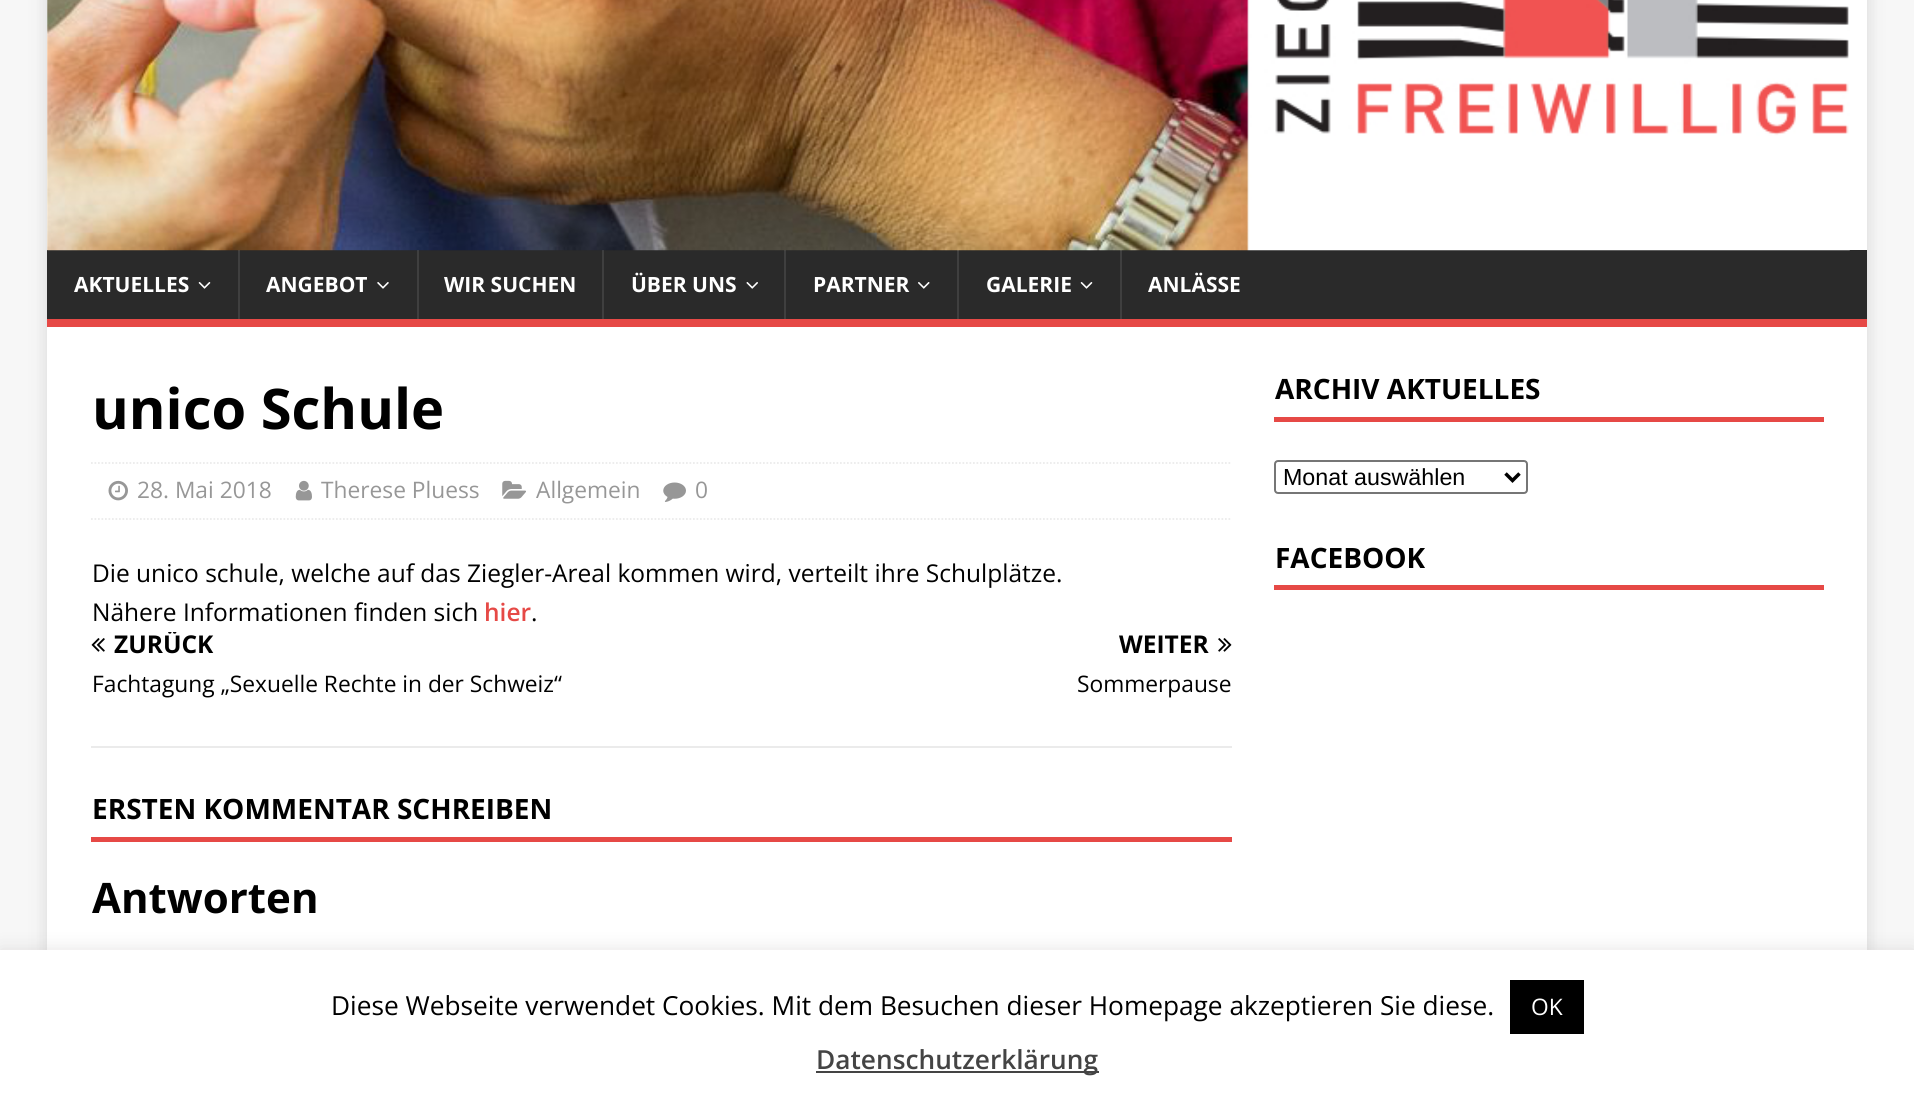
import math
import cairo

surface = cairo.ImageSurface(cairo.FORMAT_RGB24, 1914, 1100)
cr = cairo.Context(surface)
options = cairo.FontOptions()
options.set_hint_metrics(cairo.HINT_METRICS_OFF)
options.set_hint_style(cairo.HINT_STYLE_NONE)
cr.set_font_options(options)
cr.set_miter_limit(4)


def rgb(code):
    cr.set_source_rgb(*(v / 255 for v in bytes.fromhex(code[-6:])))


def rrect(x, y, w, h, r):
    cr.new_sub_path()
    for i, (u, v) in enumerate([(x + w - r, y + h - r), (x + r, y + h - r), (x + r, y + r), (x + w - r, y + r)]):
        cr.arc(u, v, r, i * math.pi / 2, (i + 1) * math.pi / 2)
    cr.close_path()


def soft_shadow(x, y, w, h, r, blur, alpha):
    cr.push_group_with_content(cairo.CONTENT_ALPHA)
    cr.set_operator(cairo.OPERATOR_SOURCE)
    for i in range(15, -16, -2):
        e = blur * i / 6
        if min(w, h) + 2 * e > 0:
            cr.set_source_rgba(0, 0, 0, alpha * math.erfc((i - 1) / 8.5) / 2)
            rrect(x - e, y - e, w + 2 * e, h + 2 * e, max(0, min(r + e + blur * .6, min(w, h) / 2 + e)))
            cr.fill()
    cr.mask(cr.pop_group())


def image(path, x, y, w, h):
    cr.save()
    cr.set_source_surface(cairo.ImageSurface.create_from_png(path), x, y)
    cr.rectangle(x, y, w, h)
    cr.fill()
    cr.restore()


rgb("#f7f7f7")
cr.paint()
rgb("#323232")
soft_shadow(47, -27, 1820, 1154, 0, 9, 0.17)
rgb("#ffffff")
cr.rectangle(47, 0, 1820, 250)
cr.fill()
rgb("#2a2a2a")
cr.rectangle(47, 250, 1820, 69)
cr.fill()
image("img/1.png", 47, 0, 1803, 251)
rgb("#e64946")
cr.rectangle(47, 319, 1820, 8)
cr.fill()
image("img/2.png", 198, 282, 13, 7)
cr.set_source_rgba(1, 1, 1, 0.1)
cr.rectangle(238, 250, 2, 69)
cr.fill()
image("img/3.png", 377, 282, 12, 7)
cr.rectangle(417, 250, 2, 69)
cr.fill()
cr.rectangle(602, 250, 2, 69)
cr.fill()
image("img/4.png", 746, 282, 12, 7)
cr.rectangle(784, 250, 2, 69)
cr.fill()
image("img/5.png", 918, 282, 12, 7)
cr.rectangle(957, 250, 2, 69)
cr.fill()
image("img/2.png", 1080, 282, 13, 7)
cr.rectangle(1120, 250, 2, 69)
cr.fill()
rgb("#ffffff")
cr.rectangle(47, 327, 1820, 623)
cr.fill()
cr.new_path()
cr.move_to(91, 463)
cr.line_to(1232, 463)
rgb("#ebebeb")
cr.set_line_width(1.8)
cr.set_dash([1.75, 1.75])
cr.stroke()
cr.new_path()
cr.move_to(91, 519)
cr.line_to(1232, 519)
cr.stroke()
image("img/6.png", 108, 480, 20, 21)
image("img/7.png", 295, 480, 17, 21)
image("img/8.png", 502, 480, 24, 19)
image("img/9.png", 663, 482, 23, 20)
cr.rectangle(91, 746, 1141, 2)
cr.fill()
image("img/10.png", 91, 638, 14, 14)
image("img/11.png", 1218, 638, 14, 14)
rgb("#e64946")
cr.rectangle(91, 837, 1141, 5)
cr.fill()
cr.rectangle(1274, 417, 550, 5)
cr.fill()
rrect(1275, 461, 252, 32, 3)
rgb("#767676")
cr.set_line_width(2)
cr.set_dash([])
cr.stroke()
cr.new_path()
cr.move_to(1505.5, 473.5)
cr.line_to(1512.5, 480.5)
cr.line_to(1519.5, 473.5)
rgb("#000000")
cr.set_line_width(3.5)
cr.stroke()
rgb("#e64946")
cr.rectangle(1274, 585, 550, 5)
cr.fill()
rgb("#acabab")
soft_shadow(0, 949, 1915, 150, 0, 9, 0.3)
for x, y, w, h, color in [
    (0, 950, 1914, 150, "#ffffff"),
    (1510, 980, 74, 54, "#000000"),
    (816, 1071, 283, 2, "#444444"),
]:
    rgb(color)
    cr.rectangle(x, y, w, h)
    cr.fill()
cr.select_font_face("Open Sans", cairo.FONT_SLANT_NORMAL, cairo.FONT_WEIGHT_BOLD)
cr.set_font_size(21)
rgb("#ffffff")
for x, y, s in [
    (74, 292, "AKTUELLES"),
    (266, 292, "ANGEBOT"),
    (444, 292, "WIR SUCHEN"),
    (631, 292, "ÜBER UNS"),
    (813, 292, "PARTNER"),
    (986, 292, "GALERIE"),
    (1148, 292, "ANLÄSSE"),
]:
    cr.move_to(x, y)
    cr.show_text(s)
cr.set_font_size(56)
rgb("#000000")
cr.move_to(92, 429)
cr.show_text("unico Schule")
cr.select_font_face("Open Sans")
cr.set_font_size(22.75)
rgb("#979797")
for x, y, s in [
    (137, 498, "28. Mai 2018"),
    (321, 498, "Therese Pluess"),
    (536, 498, "Allgemein"),
    (695, 498, "0"),
]:
    cr.move_to(x, y)
    cr.show_text(s)
cr.set_font_size(24.5)
rgb("#000000")
cr.move_to(92, 582)
cr.show_text("Die unico schule, welche auf das Ziegler-Areal kommen wird, verteilt ihre Schulplätze.")
cr.move_to(92, 621)
cr.show_text("Nähere Informationen finden sich")
cr.select_font_face("Open Sans SemiBold")
rgb("#e64946")
cr.move_to(484, 621)
cr.show_text("hier")
cr.select_font_face("Open Sans")
rgb("#000000")
cr.move_to(531, 621)
cr.show_text(".")
cr.save()
cr.rectangle(91, 632, 557, 24)
cr.clip()
cr.select_font_face("Open Sans", cairo.FONT_SLANT_NORMAL, cairo.FONT_WEIGHT_BOLD)
cr.move_to(114, 653)
cr.show_text("ZURÜCK")
cr.restore()
cr.set_font_size(22.75)
cr.move_to(92, 692)
cr.show_text("Fachtagung „Sexuelle Rechte in der Schweiz“")
cr.select_font_face("Open Sans", cairo.FONT_SLANT_NORMAL, cairo.FONT_WEIGHT_BOLD)
cr.set_font_size(24.5)
cr.move_to(1119, 653)
cr.show_text("WEITER")
cr.select_font_face("Open Sans")
cr.set_font_size(22.75)
cr.move_to(1077, 692)
cr.show_text("Sommerpause")
cr.select_font_face("Open Sans", cairo.FONT_SLANT_NORMAL, cairo.FONT_WEIGHT_BOLD)
cr.set_font_size(28)
cr.move_to(92, 819)
cr.show_text("ERSTEN KOMMENTAR SCHREIBEN")
cr.set_font_size(42)
cr.move_to(92, 913)
cr.show_text("Antworten")
cr.set_font_size(28)
cr.move_to(1275, 399)
cr.show_text("ARCHIV AKTUELLES")
cr.select_font_face("Liberation Sans")
cr.set_font_size(23.25)
cr.move_to(1283, 485)
cr.show_text("Monat auswählen")
cr.select_font_face("Open Sans", cairo.FONT_SLANT_NORMAL, cairo.FONT_WEIGHT_BOLD)
cr.set_font_size(28)
cr.move_to(1275, 568)
cr.show_text("FACEBOOK")
cr.select_font_face("Open Sans")
cr.set_font_size(26.25)
cr.move_to(331, 1015)
cr.show_text("Diese Webseite verwendet Cookies. Mit dem Besuchen dieser Homepage akzeptieren Sie diese.")
cr.set_font_size(22.75)
rgb("#ffffff")
cr.move_to(1531, 1015)
cr.show_text("OK")
cr.select_font_face("Open Sans SemiBold")
cr.set_font_size(26.25)
rgb("#444444")
cr.move_to(816, 1069)
cr.show_text("Datenschutzerklärung")
surface.write_to_png("page.png")
